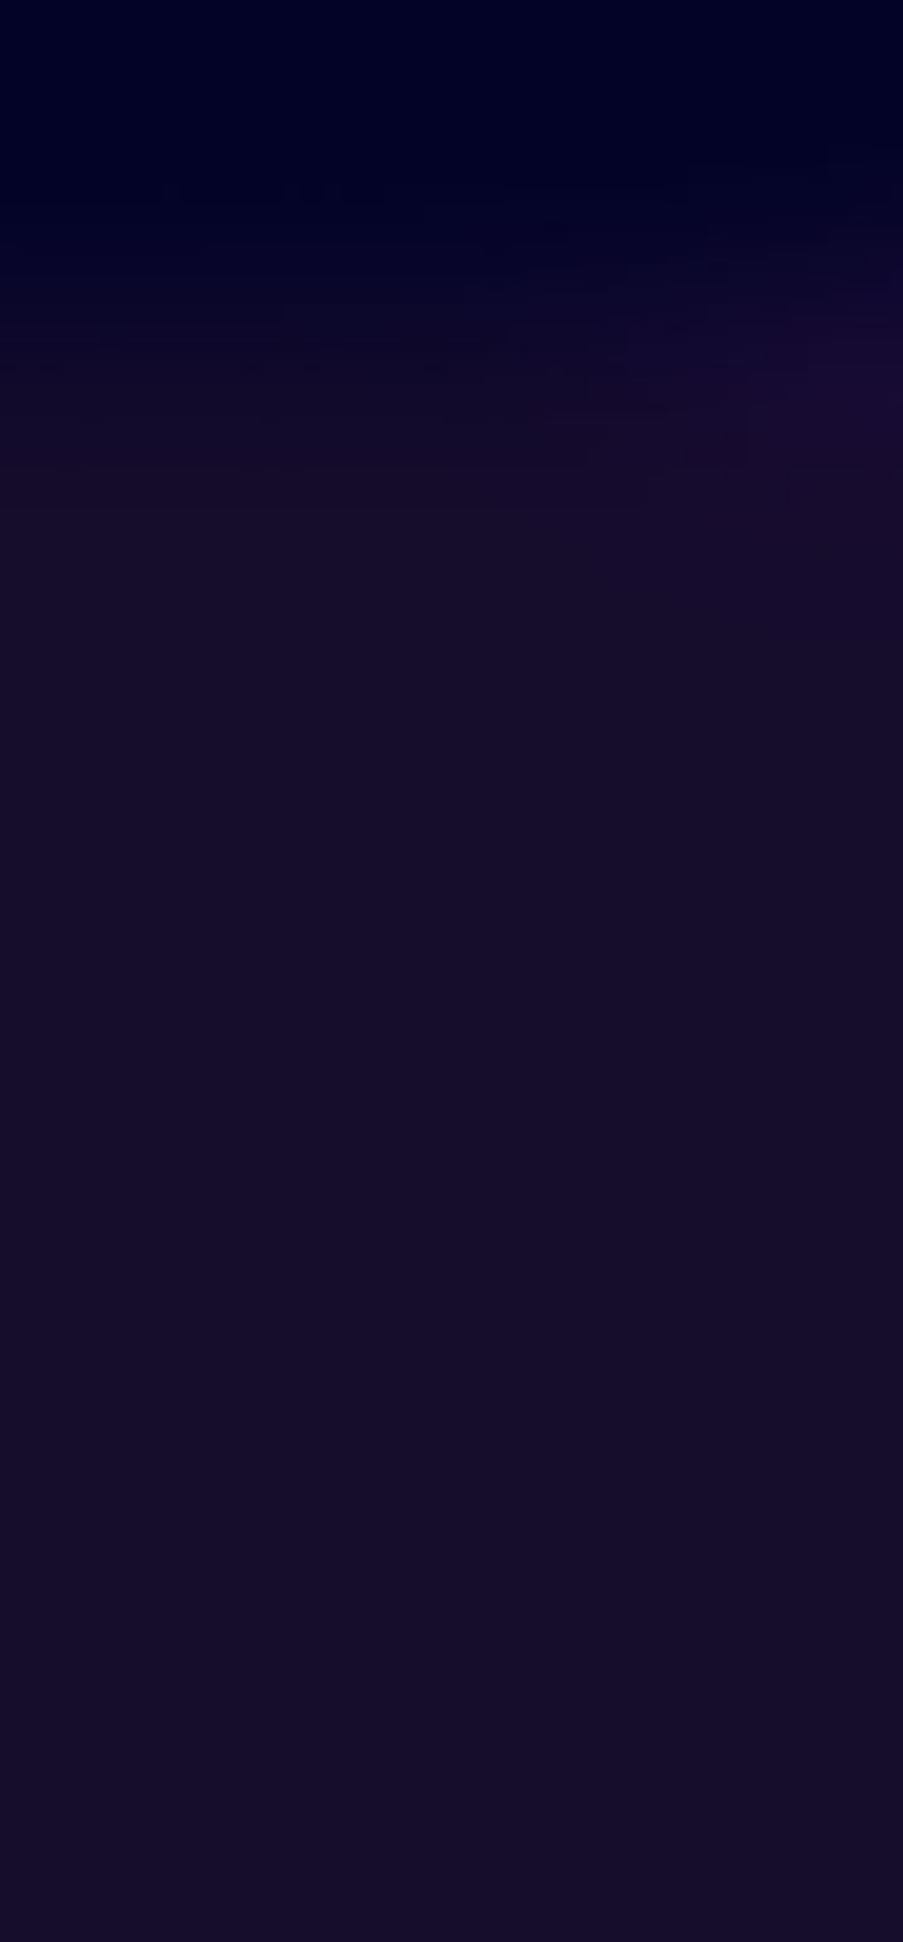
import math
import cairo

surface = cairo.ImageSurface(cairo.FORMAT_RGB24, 903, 1942)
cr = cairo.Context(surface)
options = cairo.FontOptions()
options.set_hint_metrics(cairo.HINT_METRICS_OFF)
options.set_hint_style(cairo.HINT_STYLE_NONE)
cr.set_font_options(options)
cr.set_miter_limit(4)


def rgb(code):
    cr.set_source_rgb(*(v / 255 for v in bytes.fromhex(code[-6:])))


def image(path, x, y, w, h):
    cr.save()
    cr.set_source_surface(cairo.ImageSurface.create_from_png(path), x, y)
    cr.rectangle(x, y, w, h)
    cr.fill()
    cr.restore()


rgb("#ffffff")
cr.paint()
image("img/1.png", 0, 0, 903, 1942)
surface.write_to_png("page.png")
